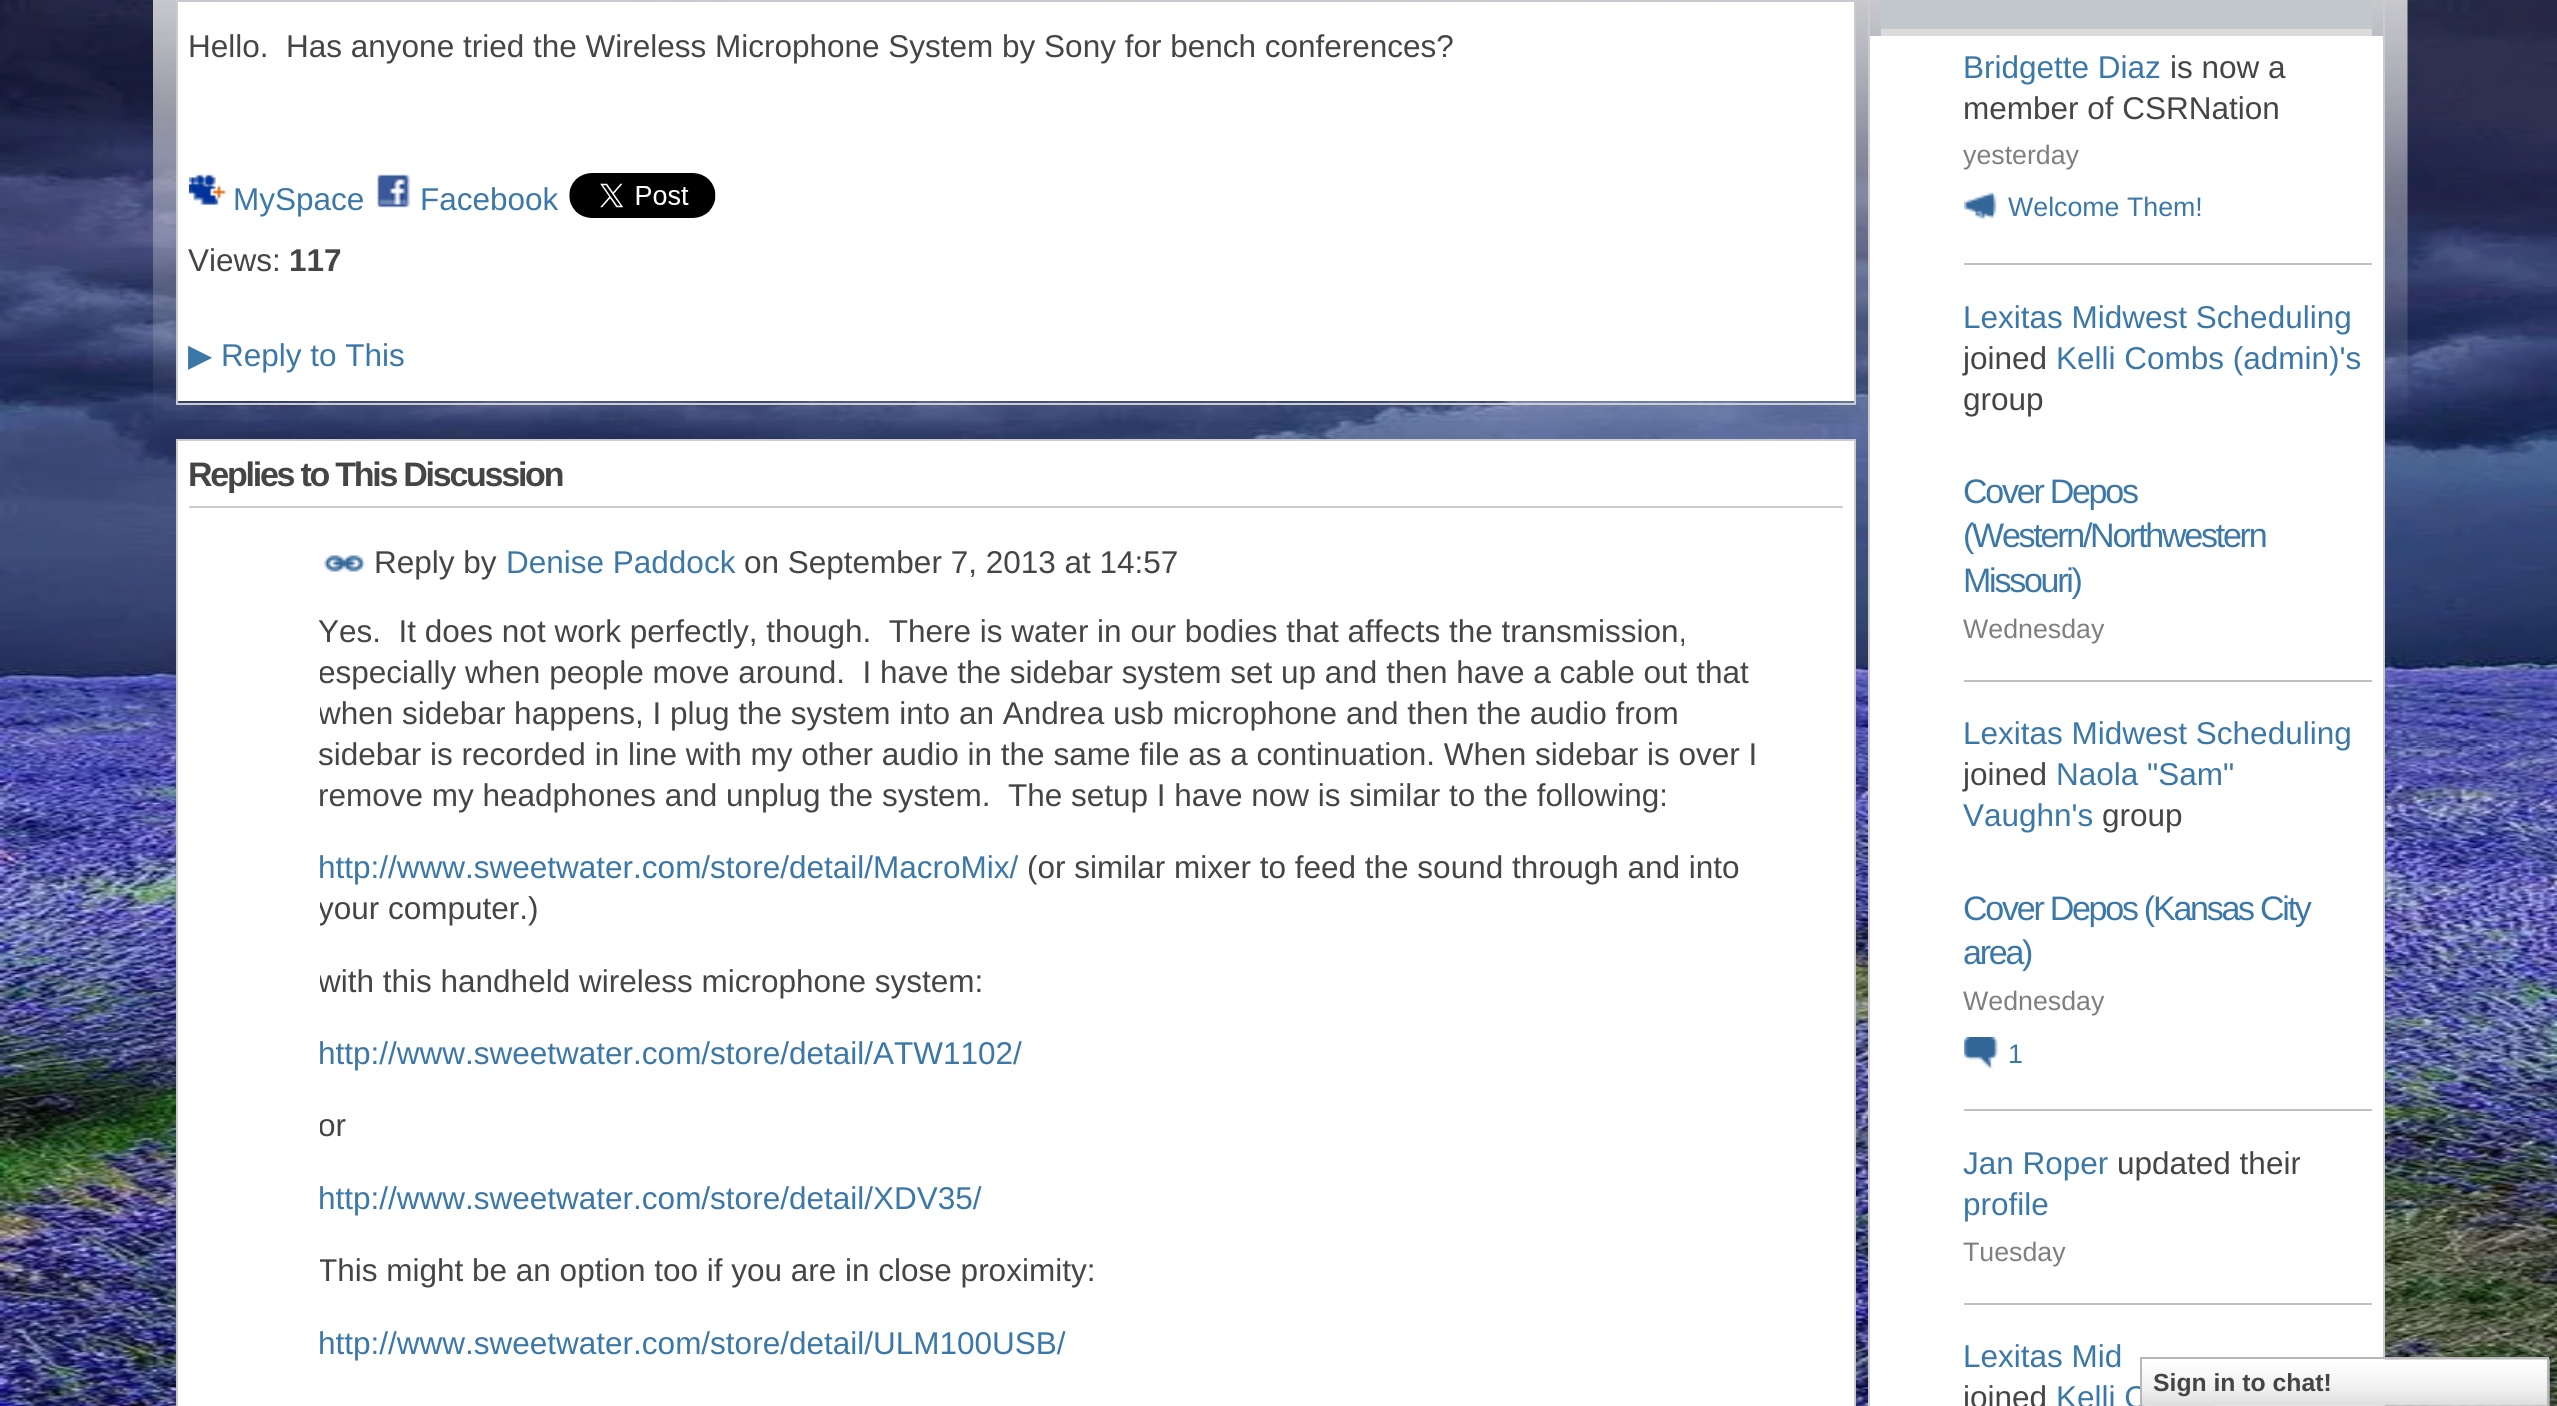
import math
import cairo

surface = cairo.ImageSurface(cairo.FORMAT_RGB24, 2557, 1406)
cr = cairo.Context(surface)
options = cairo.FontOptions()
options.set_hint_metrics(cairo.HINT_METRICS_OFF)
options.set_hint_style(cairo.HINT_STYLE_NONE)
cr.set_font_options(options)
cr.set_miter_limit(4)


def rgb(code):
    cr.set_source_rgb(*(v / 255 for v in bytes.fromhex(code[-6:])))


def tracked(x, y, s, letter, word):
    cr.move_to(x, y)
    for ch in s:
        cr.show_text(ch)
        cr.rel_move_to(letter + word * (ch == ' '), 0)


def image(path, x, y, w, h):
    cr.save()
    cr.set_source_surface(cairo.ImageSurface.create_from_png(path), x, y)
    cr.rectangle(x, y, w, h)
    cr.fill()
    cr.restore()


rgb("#ffffff")
cr.paint()
image("img/1.png", 0, 0, 2557, 1406)
image("img/2.png", 153, 0, 2255, 420)
cr.rectangle(177, -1, 1678, 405)
rgb("#cccccc")
cr.stroke()
rgb("#ffffff")
cr.rectangle(178, 2, 1676, 399)
cr.fill()
image("img/3.png", 189, 174, 37, 31)
image("img/4.png", 377, 174, 34, 34)
image("img/5.png", 569, 173, 147, 45)
cr.rectangle(177, 440, 1678, 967)
rgb("#cccccc")
cr.stroke()
rgb("#ffffff")
cr.rectangle(178, 441, 1676, 965)
cr.fill()
rgb("#cbcbcb")
cr.rectangle(189, 506, 1654, 2)
cr.fill()
image("img/6.png", 324, 555, 41, 17)
cr.rectangle(1869, -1, 515, 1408)
rgb("#cccccc")
cr.stroke()
for x, y, w, h, color in [
    (1881, 0, 491, 29, "#c2c7cc"),
    (1881, 29, 491, 7, "#dcdcdc"),
    (1870, 36, 513, 1370, "#ffffff"),
    (1964, 263, 408, 2, "#c0c0c0"),
]:
    rgb(color)
    cr.rectangle(x, y, w, h)
    cr.fill()
image("img/7.png", 1964, 192, 33, 27)
cr.rectangle(1964, 680, 408, 2)
cr.fill()
cr.rectangle(1964, 1109, 408, 2)
cr.fill()
image("img/8.png", 1964, 1037, 34, 32)
cr.rectangle(1964, 1303, 408, 2)
cr.fill()
cr.select_font_face("Liberation Sans")
cr.set_font_size(31.5)
rgb("#454545")
cr.move_to(188, 57)
cr.show_text("Hello.  Has anyone tried the Wireless Microphone System by Sony for bench conferences?")
rgb("#3c78a7")
cr.move_to(233, 210)
cr.show_text("MySpace")
cr.move_to(420, 210)
cr.show_text("Facebook")
rgb("#454545")
cr.move_to(188, 271)
cr.show_text("Views:")
cr.select_font_face("Liberation Sans", cairo.FONT_SLANT_NORMAL, cairo.FONT_WEIGHT_BOLD)
cr.move_to(289, 271)
cr.show_text("117")
cr.select_font_face("DejaVu Sans")
rgb("#3c78a7")
cr.move_to(188, 366)
cr.show_text("▶")
cr.select_font_face("Liberation Sans")
cr.move_to(221, 366)
cr.show_text("Reply to This")
cr.select_font_face("Liberation Sans", cairo.FONT_SLANT_NORMAL, cairo.FONT_WEIGHT_BOLD)
cr.set_font_size(34)
rgb("#454545")
tracked(188, 486, "Replies to This Discussion", -2.25, 0)
cr.select_font_face("Liberation Sans")
cr.set_font_size(31.5)
cr.move_to(374, 573)
cr.show_text("Reply by")
rgb("#3c78a7")
cr.move_to(506, 573)
cr.show_text("Denise Paddock")
rgb("#454545")
cr.move_to(744, 573)
cr.show_text("on September 7, 2013 at 14:57")
cr.move_to(318, 642)
cr.show_text("Yes.  It does not work perfectly, though.  There is water in our bodies that affects the transmission,")
cr.save()
cr.rectangle(320, 599, 1444, 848)
cr.clip()
cr.move_to(318, 683)
cr.show_text("especially when people move around.  I have the sidebar system set up and then have a cable out that")
cr.move_to(318, 724)
cr.show_text("when sidebar happens, I plug the system into an Andrea usb microphone and then the audio from")
cr.restore()
cr.move_to(318, 765)
cr.show_text("sidebar is recorded in line with my other audio in the same file as a continuation. When sidebar is over I")
cr.move_to(318, 806)
cr.show_text("remove my headphones and unplug the system.  The setup I have now is similar to the following:")
rgb("#3c78a7")
cr.move_to(318, 878)
cr.show_text("http://www.sweetwater.com/store/detail/MacroMix/")
rgb("#454545")
cr.move_to(1027, 878)
cr.show_text("(or similar mixer to feed the sound through and into")
cr.save()
cr.rectangle(320, 599, 1444, 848)
cr.clip()
cr.move_to(318, 919)
cr.show_text("your computer.)")
cr.move_to(318, 992)
cr.show_text("with this handheld wireless microphone system:")
cr.restore()
rgb("#3c78a7")
cr.move_to(318, 1064)
cr.show_text("http://www.sweetwater.com/store/detail/ATW1102/")
cr.save()
cr.rectangle(320, 599, 1444, 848)
cr.clip()
rgb("#454545")
cr.move_to(318, 1136)
cr.show_text("or")
cr.restore()
cr.move_to(318, 1209)
cr.show_text("http://www.sweetwater.com/store/detail/XDV35/")
cr.save()
cr.rectangle(320, 599, 1444, 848)
cr.clip()
rgb("#454545")
cr.move_to(318, 1281)
cr.show_text("This might be an option too if you are in close proximity:")
cr.restore()
cr.move_to(318, 1354)
cr.show_text("http://www.sweetwater.com/store/detail/ULM100USB/")
cr.move_to(1963, 78)
cr.show_text("Bridgette Diaz")
rgb("#454545")
cr.move_to(2170, 78)
cr.show_text("is now a")
cr.move_to(1963, 119)
cr.show_text("member of CSRNation")
cr.set_font_size(26.75)
rgb("#7f7f7f")
cr.move_to(1963, 164)
cr.show_text("yesterday")
rgb("#3c78a7")
cr.move_to(2008, 216)
cr.show_text("Welcome Them!")
cr.set_font_size(31.5)
cr.move_to(1963, 328)
cr.show_text("Lexitas Midwest Scheduling")
rgb("#454545")
cr.move_to(1963, 369)
cr.show_text("joined")
rgb("#3c78a7")
cr.move_to(2056, 369)
cr.show_text("Kelli Combs (admin)'s")
rgb("#454545")
cr.move_to(1963, 410)
cr.show_text("group")
cr.set_font_size(34)
rgb("#3c78a7")
for x, y, s in [
    (1963, 503, "Cover Depos"),
    (1963, 547, "(Western/Northwestern"),
    (1963, 592, "Missouri)"),
]:
    tracked(x, y, s, -2.25, 0)
cr.set_font_size(26.75)
rgb("#7f7f7f")
cr.move_to(1963, 638)
cr.show_text("Wednesday")
cr.set_font_size(31.5)
rgb("#3c78a7")
cr.move_to(1963, 744)
cr.show_text("Lexitas Midwest Scheduling")
rgb("#454545")
cr.move_to(1963, 785)
cr.show_text("joined")
rgb("#3c78a7")
cr.move_to(2056, 785)
cr.show_text("Naola \"Sam\"")
cr.move_to(1963, 826)
cr.show_text("Vaughn's")
rgb("#454545")
cr.move_to(2102, 826)
cr.show_text("group")
cr.set_font_size(34)
rgb("#3c78a7")
tracked(1963, 920, "Cover Depos (Kansas City", -2.25, 0)
tracked(1963, 964, "area)", -2.25, 0)
cr.set_font_size(26.75)
rgb("#7f7f7f")
cr.move_to(1963, 1010)
cr.show_text("Wednesday")
rgb("#3c78a7")
cr.move_to(2008, 1063)
cr.show_text("1")
cr.set_font_size(31.5)
cr.move_to(1963, 1174)
cr.show_text("Jan Roper")
rgb("#454545")
cr.move_to(2117, 1174)
cr.show_text("updated their")
rgb("#3c78a7")
cr.move_to(1963, 1215)
cr.show_text("profile")
cr.set_font_size(26.75)
rgb("#7f7f7f")
cr.move_to(1963, 1261)
cr.show_text("Tuesday")
cr.set_font_size(31.5)
rgb("#3c78a7")
cr.move_to(1963, 1367)
cr.show_text("Lexitas Mid")
rgb("#454545")
cr.move_to(1963, 1408)
cr.show_text("joined")
rgb("#3c78a7")
cr.move_to(2056, 1408)
cr.show_text("Kelli C")
image("img/9.png", 2142, 1358, 408, 48)
cr.rectangle(2141, 1358, 407, 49)
rgb("#b7b7b7")
cr.stroke()
image("img/10.png", 2153, 1359, 61, 47)
cr.select_font_face("Liberation Sans", cairo.FONT_SLANT_NORMAL, cairo.FONT_WEIGHT_BOLD)
cr.set_font_size(24.75)
rgb("#454545")
cr.move_to(2153, 1391)
cr.show_text("Sign in to chat!")
surface.write_to_png("page.png")
